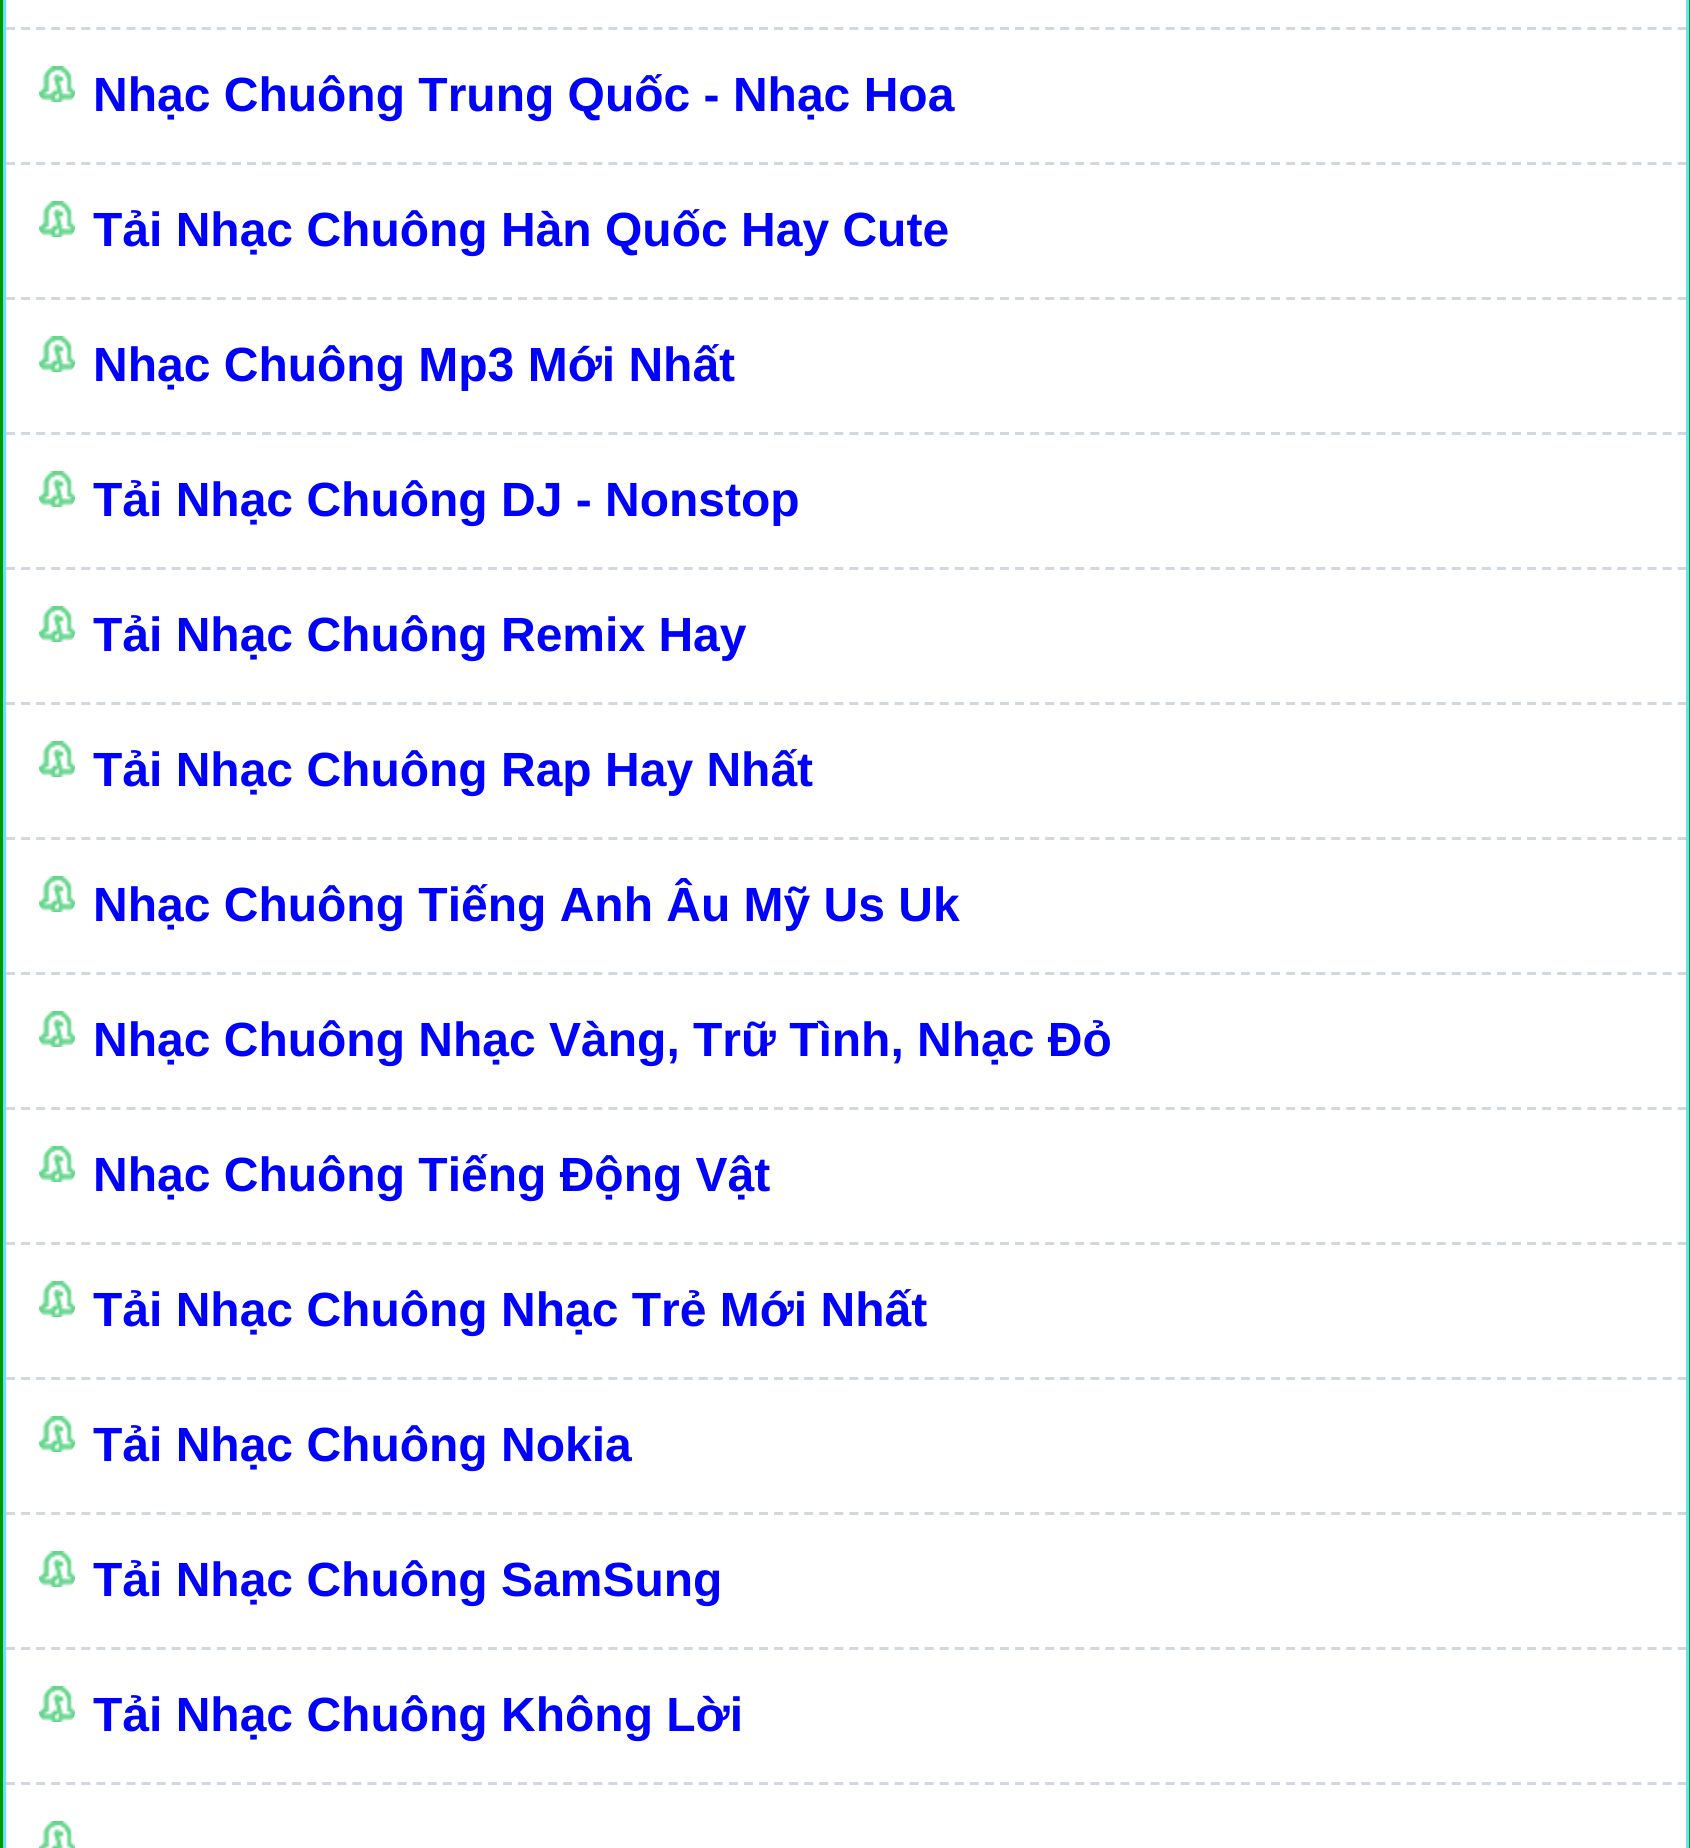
import math
import cairo

surface = cairo.ImageSurface(cairo.FORMAT_RGB24, 1690, 1848)
cr = cairo.Context(surface)
options = cairo.FontOptions()
options.set_hint_metrics(cairo.HINT_METRICS_OFF)
options.set_hint_style(cairo.HINT_STYLE_NONE)
cr.set_font_options(options)
cr.set_miter_limit(4)


def rgb(code):
    cr.set_source_rgb(*(v / 255 for v in bytes.fromhex(code[-6:])))


def image(path, x, y, w, h):
    cr.save()
    cr.set_source_surface(cairo.ImageSurface.create_from_png(path), x, y)
    cr.rectangle(x, y, w, h)
    cr.fill()
    cr.restore()


rgb("#009900")
cr.paint()
rgb("#ffffff")
cr.rectangle(4.5, -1.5, 1683, 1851)
cr.fill_preserve()
rgb("#68e1ff")
cr.set_line_width(3)
cr.stroke()
cr.new_path()
cr.move_to(6, 28.5)
cr.line_to(1686, 28.5)
rgb("#d1d8df")
cr.set_dash([9, 6.06])
cr.stroke()
cr.new_path()
cr.move_to(6, 163.5)
cr.line_to(1686, 163.5)
cr.stroke()
image("img/1.png", 39, 66, 36, 36)
cr.new_path()
cr.move_to(6, 298.5)
cr.line_to(1686, 298.5)
cr.stroke()
image("img/2.png", 39, 201, 36, 36)
cr.new_path()
cr.move_to(6, 433.5)
cr.line_to(1686, 433.5)
cr.stroke()
image("img/1.png", 39, 336, 36, 36)
cr.new_path()
cr.move_to(6, 568.5)
cr.line_to(1686, 568.5)
cr.stroke()
image("img/1.png", 39, 471, 36, 36)
cr.new_path()
cr.move_to(6, 703.5)
cr.line_to(1686, 703.5)
cr.stroke()
image("img/1.png", 39, 606, 36, 36)
cr.new_path()
cr.move_to(6, 838.5)
cr.line_to(1686, 838.5)
cr.stroke()
image("img/1.png", 39, 741, 36, 36)
cr.new_path()
cr.move_to(6, 973.5)
cr.line_to(1686, 973.5)
cr.stroke()
image("img/1.png", 39, 876, 36, 36)
cr.new_path()
cr.move_to(6, 1108.5)
cr.line_to(1686, 1108.5)
cr.stroke()
image("img/1.png", 39, 1011, 36, 36)
cr.new_path()
cr.move_to(6, 1243.5)
cr.line_to(1686, 1243.5)
cr.stroke()
image("img/3.png", 39, 1146, 36, 36)
cr.new_path()
cr.move_to(6, 1378.5)
cr.line_to(1686, 1378.5)
cr.stroke()
image("img/1.png", 39, 1281, 36, 36)
cr.new_path()
cr.move_to(6, 1513.5)
cr.line_to(1686, 1513.5)
cr.stroke()
image("img/4.png", 39, 1416, 36, 36)
cr.new_path()
cr.move_to(6, 1648.5)
cr.line_to(1686, 1648.5)
cr.stroke()
image("img/1.png", 39, 1551, 36, 36)
cr.new_path()
cr.move_to(6, 1783.5)
cr.line_to(1686, 1783.5)
cr.stroke()
image("img/5.png", 39, 1686, 36, 36)
image("img/6.png", 39, 1821, 36, 27)
cr.select_font_face("Liberation Sans", cairo.FONT_SLANT_NORMAL, cairo.FONT_WEIGHT_BOLD)
cr.set_font_size(48)
rgb("#0000ff")
for x, y, s in [
    (93, 111, "Nhạc Chuông Trung Quốc - Nhạc Hoa"),
    (93, 246, "Tải Nhạc Chuông Hàn Quốc Hay Cute"),
    (93, 381, "Nhạc Chuông Mp3 Mới Nhất"),
    (93, 516, "Tải Nhạc Chuông DJ - Nonstop"),
    (93, 651, "Tải Nhạc Chuông Remix Hay"),
    (93, 786, "Tải Nhạc Chuông Rap Hay Nhất"),
    (93, 921, "Nhạc Chuông Tiếng Anh Âu Mỹ Us Uk"),
    (93, 1056, "Nhạc Chuông Nhạc Vàng, Trữ Tình, Nhạc Đỏ"),
    (93, 1191, "Nhạc Chuông Tiếng Động Vật"),
    (93, 1326, "Tải Nhạc Chuông Nhạc Trẻ Mới Nhất"),
    (93, 1461, "Tải Nhạc Chuông Nokia"),
    (93, 1596, "Tải Nhạc Chuông SamSung"),
    (93, 1731, "Tải Nhạc Chuông Không Lời"),
]:
    cr.move_to(x, y)
    cr.show_text(s)
surface.write_to_png("page.png")
